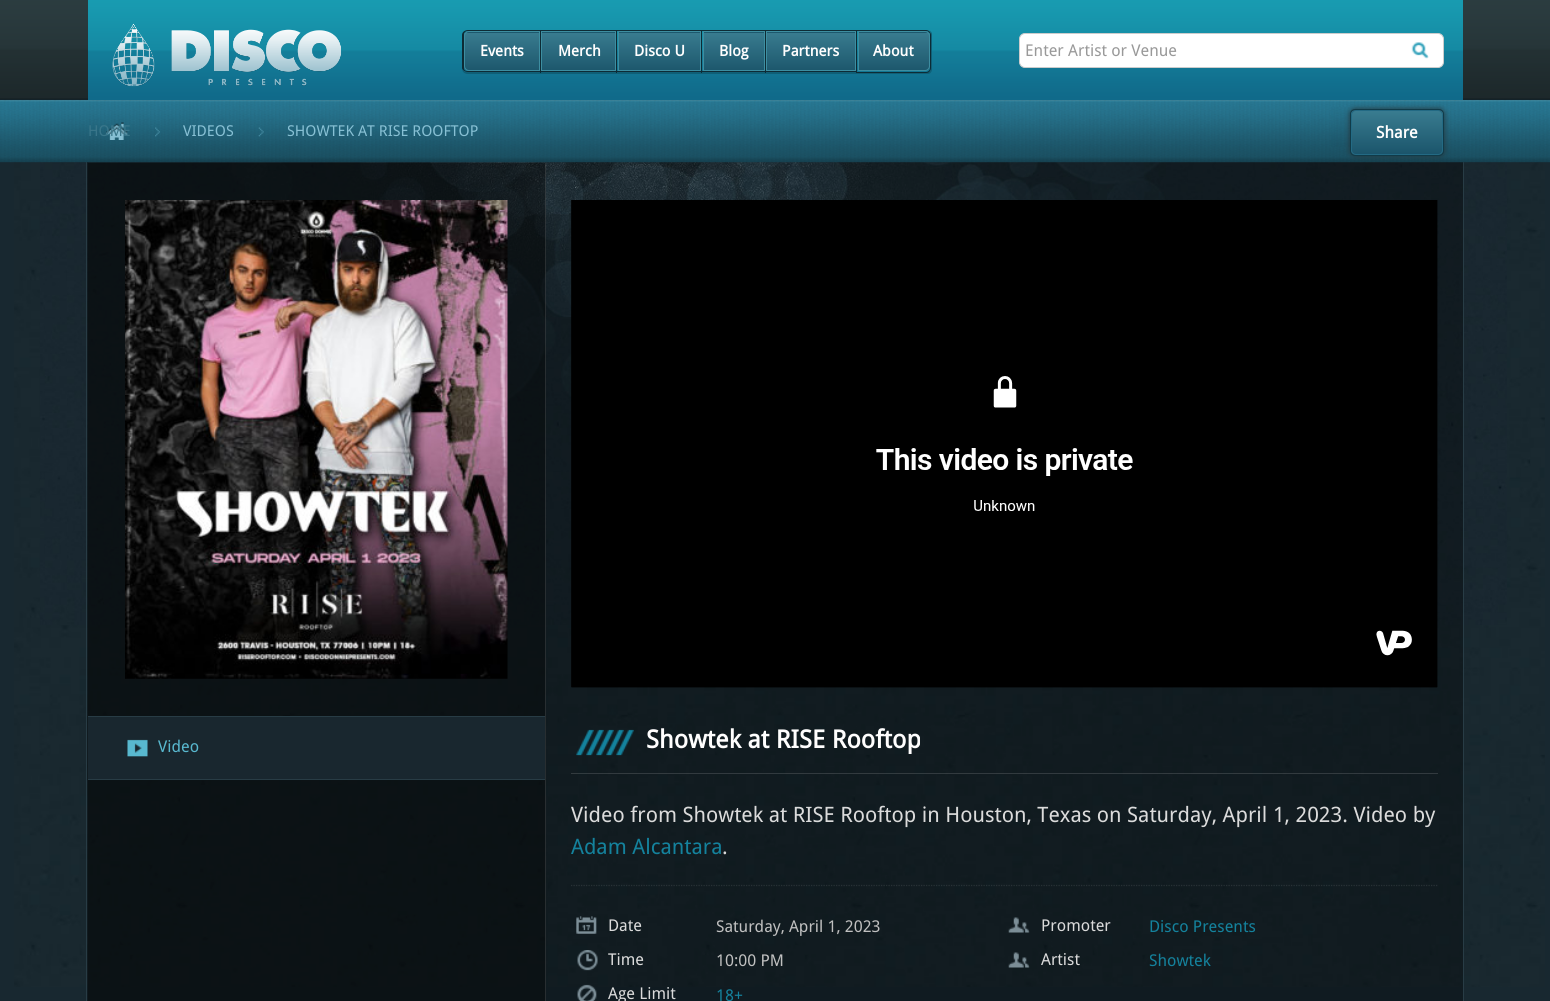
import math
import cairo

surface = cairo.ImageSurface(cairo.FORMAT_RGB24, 1550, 1001)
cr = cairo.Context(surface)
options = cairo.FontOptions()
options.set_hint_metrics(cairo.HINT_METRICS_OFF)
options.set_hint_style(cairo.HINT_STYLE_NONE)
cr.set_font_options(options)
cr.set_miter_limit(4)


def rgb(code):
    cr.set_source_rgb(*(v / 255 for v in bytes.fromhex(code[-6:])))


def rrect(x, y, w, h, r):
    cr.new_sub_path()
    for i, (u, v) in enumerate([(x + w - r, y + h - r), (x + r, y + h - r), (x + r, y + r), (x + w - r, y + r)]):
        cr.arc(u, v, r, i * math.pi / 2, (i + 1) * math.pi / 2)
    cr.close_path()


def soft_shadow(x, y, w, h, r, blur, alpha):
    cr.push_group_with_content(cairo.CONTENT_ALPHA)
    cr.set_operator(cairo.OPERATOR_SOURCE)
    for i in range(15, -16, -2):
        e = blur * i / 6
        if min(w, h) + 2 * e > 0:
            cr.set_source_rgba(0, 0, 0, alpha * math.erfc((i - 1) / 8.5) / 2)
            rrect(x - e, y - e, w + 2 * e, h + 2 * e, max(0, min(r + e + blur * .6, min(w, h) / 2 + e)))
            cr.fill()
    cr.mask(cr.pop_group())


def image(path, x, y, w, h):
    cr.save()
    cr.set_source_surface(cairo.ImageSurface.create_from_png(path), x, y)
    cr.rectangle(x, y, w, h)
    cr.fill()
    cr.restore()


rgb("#182830")
cr.paint()
image("img/1.png", 14, 162, 1531, 825)
image("img/10.png", 40, 162, 1467, 463)
cr.set_source_rgba(0, 0, 0, 0.32)
cr.rectangle(86.5, 161.5, 1377, 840)
cr.fill_preserve()
rgb("#283c45")
cr.set_line_width(1)
cr.stroke()
image("img/2.png", 0, 0, 1550, 163)
image("img/3.png", 88, 0, 1375, 100)
image("img/4.png", 112, 23, 230, 64)
rgb("#0f5f77")
cr.set_fill_rule(cairo.FILL_RULE_EVEN_ODD)
cr.new_path()
cr.move_to(468, 30)
cr.line_to(928, 30)
cr.curve_to(930, 30, 932, 32, 932, 35)
cr.line_to(932, 69)
cr.curve_to(932, 72, 930, 74, 928, 74)
cr.line_to(468, 74)
cr.curve_to(465, 74, 462, 72, 462, 69)
cr.line_to(462, 35)
cr.curve_to(462, 32, 465, 30, 468, 30)
cr.close_path()
cr.move_to(468, 30)
cr.line_to(928, 30)
cr.curve_to(930, 30, 931, 32, 931, 35)
cr.line_to(931, 69)
cr.curve_to(931, 71, 930, 72, 928, 72)
cr.line_to(468, 72)
cr.curve_to(465, 72, 462, 71, 462, 69)
cr.line_to(462, 35)
cr.curve_to(462, 32, 465, 30, 468, 30)
cr.close_path()
cr.fill()
rgb("#0d2b35")
cr.new_path()
cr.move_to(468, 30)
cr.line_to(540, 30)
cr.line_to(540, 72)
cr.line_to(468, 72)
cr.curve_to(465, 72, 462, 70, 462, 68)
cr.line_to(462, 35)
cr.curve_to(462, 32, 465, 30, 468, 30)
cr.close_path()
cr.move_to(468, 31)
cr.line_to(540, 31)
cr.line_to(540, 71)
cr.line_to(468, 71)
cr.curve_to(465, 71, 464, 70, 464, 68)
cr.line_to(464, 35)
cr.curve_to(464, 33, 465, 31, 468, 31)
cr.close_path()
cr.fill()
cr.save()
cr.set_fill_rule(cairo.FILL_RULE_WINDING)
cr.new_path()
cr.move_to(469, 31)
cr.line_to(540, 31)
cr.line_to(540, 71)
cr.line_to(469, 71)
cr.curve_to(466, 71, 464, 69, 464, 66)
cr.line_to(464, 36)
cr.curve_to(464, 33, 466, 31, 469, 31)
cr.close_path()
cr.clip()
gradient = cairo.LinearGradient(502, -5, 502, 33)
gradient.add_color_stop_rgba(0, 0.224, 0.486, 0.565, 1)
gradient.add_color_stop_rgba(1, 0.114, 0.345, 0.427, 1)
cr.set_source(gradient)
cr.rectangle(464, 31, 76, 2)
cr.fill()
gradient = cairo.LinearGradient(502, 32, 502, 70)
gradient.add_color_stop_rgba(0, 0.224, 0.486, 0.565, 1)
gradient.add_color_stop_rgba(1, 0.114, 0.345, 0.427, 1)
cr.set_source(gradient)
cr.rectangle(464, 33, 75, 37)
cr.fill()
cr.restore()
cr.new_path()
cr.move_to(469, 31.5)
cr.line_to(539.5, 31.5)
cr.line_to(539.5, 70.5)
cr.line_to(469, 70.5)
cr.curve_to(466.5, 70.5, 464.5, 68.5, 464.5, 66)
cr.line_to(464.5, 36)
cr.curve_to(464.5, 33.5, 466.5, 31.5, 469, 31.5)
cr.close_path()
rgb("#3d8ea1")
cr.stroke()
for x, y, w, h, color in [
    (540, 30, 316, 1, "#0d2b35"),
    (540, 71, 316, 1, "#0d2b35"),
    (540, 30, 1, 43, "#0d2b35"),
]:
    rgb(color)
    cr.rectangle(x, y, w, h)
    cr.fill()
gradient = cairo.LinearGradient(579, -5, 579, 33)
gradient.add_color_stop_rgba(0, 0.224, 0.486, 0.565, 1)
gradient.add_color_stop_rgba(1, 0.114, 0.345, 0.427, 1)
cr.set_source(gradient)
cr.rectangle(541, 32, 75, 1)
cr.fill()
gradient = cairo.LinearGradient(579, 32, 579, 70)
gradient.add_color_stop_rgba(0, 0.224, 0.486, 0.565, 1)
gradient.add_color_stop_rgba(1, 0.114, 0.345, 0.427, 1)
cr.set_source(gradient)
cr.rectangle(542, 33, 73, 37)
cr.fill()
cr.rectangle(541.5, 31.5, 74, 39)
rgb("#3d8ea1")
cr.stroke()
rgb("#0d2b35")
cr.rectangle(616, 30, 1, 43)
cr.fill()
gradient = cairo.LinearGradient(659, -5, 659, 33)
gradient.add_color_stop_rgba(0, 0.224, 0.486, 0.565, 1)
gradient.add_color_stop_rgba(1, 0.114, 0.345, 0.427, 1)
cr.set_source(gradient)
cr.rectangle(618, 32, 83, 1)
cr.fill()
gradient = cairo.LinearGradient(659, 32, 659, 70)
gradient.add_color_stop_rgba(0, 0.224, 0.486, 0.565, 1)
gradient.add_color_stop_rgba(1, 0.114, 0.345, 0.427, 1)
cr.set_source(gradient)
cr.rectangle(619, 33, 81, 37)
cr.fill()
cr.rectangle(618.5, 31.5, 82, 39)
rgb("#3d8ea1")
cr.stroke()
rgb("#0d2b35")
cr.rectangle(701, 30, 1, 43)
cr.fill()
gradient = cairo.LinearGradient(734, -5, 734, 33)
gradient.add_color_stop_rgba(0, 0.224, 0.486, 0.565, 1)
gradient.add_color_stop_rgba(1, 0.114, 0.345, 0.427, 1)
cr.set_source(gradient)
cr.rectangle(703, 32, 62, 1)
cr.fill()
gradient = cairo.LinearGradient(734, 32, 734, 70)
gradient.add_color_stop_rgba(0, 0.224, 0.486, 0.565, 1)
gradient.add_color_stop_rgba(1, 0.114, 0.345, 0.427, 1)
cr.set_source(gradient)
cr.rectangle(704, 33, 60, 37)
cr.fill()
cr.rectangle(703.5, 31.5, 61, 39)
rgb("#3d8ea1")
cr.stroke()
rgb("#0d2b35")
cr.rectangle(765, 30, 1, 43)
cr.fill()
gradient = cairo.LinearGradient(811, -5, 811, 33)
gradient.add_color_stop_rgba(0, 0.224, 0.486, 0.565, 1)
gradient.add_color_stop_rgba(1, 0.114, 0.345, 0.427, 1)
cr.set_source(gradient)
cr.rectangle(766, 32, 90, 1)
cr.fill()
gradient = cairo.LinearGradient(811, 32, 811, 70)
gradient.add_color_stop_rgba(0, 0.224, 0.486, 0.565, 1)
gradient.add_color_stop_rgba(1, 0.114, 0.345, 0.427, 1)
cr.set_source(gradient)
cr.rectangle(767, 33, 88, 37)
cr.fill()
cr.rectangle(766.5, 31.5, 89, 39)
rgb("#3d8ea1")
cr.stroke()
cr.new_path()
cr.move_to(856.5, 30.5)
cr.line_to(926, 30.5)
cr.curve_to(928.5, 30.5, 930.5, 32.5, 930.5, 35)
cr.line_to(930.5, 68)
cr.curve_to(930.5, 70.5, 928.5, 72.5, 926, 72.5)
cr.line_to(856.5, 72.5)
cr.close_path()
rgb("#0d2b35")
cr.stroke()
cr.save()
cr.set_fill_rule(cairo.FILL_RULE_WINDING)
cr.new_path()
cr.move_to(858, 31)
cr.line_to(925, 31)
cr.curve_to(928, 31, 930, 33, 930, 36)
cr.line_to(930, 66)
cr.curve_to(930, 69, 928, 71, 925, 71)
cr.line_to(858, 71)
cr.close_path()
cr.clip()
gradient = cairo.LinearGradient(894, -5, 894, 33)
gradient.add_color_stop_rgba(0, 0.224, 0.486, 0.565, 1)
gradient.add_color_stop_rgba(1, 0.114, 0.345, 0.427, 1)
cr.set_source(gradient)
cr.rectangle(858, 31, 72, 2)
cr.fill()
gradient = cairo.LinearGradient(894, 32, 894, 70)
gradient.add_color_stop_rgba(0, 0.224, 0.486, 0.565, 1)
gradient.add_color_stop_rgba(1, 0.114, 0.345, 0.427, 1)
cr.set_source(gradient)
cr.rectangle(859, 33, 71, 37)
cr.fill()
cr.restore()
cr.new_path()
cr.move_to(858.5, 31.5)
cr.line_to(925, 31.5)
cr.curve_to(927.5, 31.5, 929.5, 33.5, 929.5, 36)
cr.line_to(929.5, 66)
cr.curve_to(929.5, 68.5, 927.5, 70.5, 925, 70.5)
cr.line_to(858.5, 70.5)
cr.close_path()
rgb("#3d8ea1")
cr.stroke()
rgb("#ffffff")
rrect(1019.5, 33.5, 424, 34, 5.5)
cr.fill_preserve()
rgb("#cccccc")
cr.stroke()
image("img/5.png", 1411, 42, 18, 17)
image("img/6.png", 106, 122, 22, 18)
image("img/7.png", 155, 127, 5, 10)
image("img/8.png", 258, 127, 6, 10)
image("img/9.png", 1331, 107, 111, 40)
rgb("#263539")
soft_shadow(1350, 109, 94, 47, 5, 3, 1)
rrect(1350.5, 109.5, 93, 46, 4.5)
rgb("#103b49")
cr.stroke()
cr.save()
cr.set_fill_rule(cairo.FILL_RULE_WINDING)
rrect(1351, 110, 92, 45, 5)
cr.clip()
gradient = cairo.LinearGradient(1397, 111, 1397, 154)
gradient.add_color_stop_rgba(0, 0.224, 0.486, 0.565, 1)
gradient.add_color_stop_rgba(1, 0.106, 0.333, 0.42, 1)
cr.set_source(gradient)
cr.rectangle(1351, 111, 92, 43)
cr.fill()
cr.restore()
rrect(1351.5, 110.5, 91, 44, 4.5)
rgb("#236a84")
cr.stroke()
cr.set_source_rgba(0.016, 0.016, 0.016, 0.39)
cr.rectangle(88, 163, 458, 838)
cr.fill()
cr.set_source_rgba(1, 1, 1, 0.12)
cr.rectangle(545, 163, 1, 838)
cr.fill()
image("img/11.png", 125, 200, 383, 479)
for x, y, w, h, color in [
    (88, 717, 457, 62, "#19272f"),
    (88, 716, 457, 1, "#283c45"),
    (88, 779, 457, 1, "#283c45"),
]:
    rgb(color)
    cr.rectangle(x, y, w, h)
    cr.fill()
image("img/12.png", 127, 739, 21, 18)
image("img/13.png", 571, 200, 867, 488)
image("img/14.png", 576, 729, 58, 27)
cr.set_source_rgba(1, 1, 1, 0.14)
cr.rectangle(571, 773, 867, 1)
cr.fill()
cr.new_path()
cr.move_to(571, 885.5)
cr.line_to(1437.5, 885.5)
cr.set_source_rgba(0.988, 0.988, 0.988, 0.1)
cr.set_line_width(1.2)
cr.set_dash([1.25, 1.25])
cr.stroke()
image("img/15.png", 576, 916, 21, 18)
image("img/16.png", 577, 950, 21, 21)
image("img/17.png", 577, 984, 20, 17)
image("img/18.png", 1008, 917, 22, 16)
image("img/19.png", 1008, 952, 22, 16)
cr.select_font_face("Droid Sans", cairo.FONT_SLANT_NORMAL, cairo.FONT_WEIGHT_BOLD)
cr.set_font_size(15)
rgb("#fffefe")
for x, y, s in [
    (480, 56, "Events"),
    (558, 56, "Merch"),
    (634, 56, "Disco U"),
    (719, 56, "Blog"),
    (782, 56, "Partners"),
    (873, 56, "About"),
]:
    cr.move_to(x, y)
    cr.show_text(s)
cr.select_font_face("Droid Sans")
cr.set_font_size(16.25)
rgb("#999999")
cr.move_to(1025, 56)
cr.show_text("Enter Artist or Venue")
cr.set_font_size(15)
rgb("#39768a")
cr.move_to(88, 136)
cr.show_text("HOME")
rgb("#87c0d4")
cr.move_to(183, 136)
cr.show_text("VIDEOS")
cr.move_to(287, 136)
cr.show_text("SHOWTEK AT RISE ROOFTOP")
cr.select_font_face("Droid Sans", cairo.FONT_SLANT_NORMAL, cairo.FONT_WEIGHT_BOLD)
cr.set_font_size(16.25)
rgb("#fffefe")
cr.move_to(1376, 138)
cr.show_text("Share")
cr.select_font_face("Droid Sans")
rgb("#58b8cf")
cr.move_to(158, 752)
cr.show_text("Video")
cr.select_font_face("Droid Sans", cairo.FONT_SLANT_NORMAL, cairo.FONT_WEIGHT_BOLD)
cr.set_font_size(25)
rgb("#fffefe")
cr.move_to(646, 748)
cr.show_text("Showtek at RISE Rooftop")
cr.select_font_face("Droid Sans")
cr.set_font_size(21.25)
rgb("#dbdbdb")
cr.move_to(571, 822)
cr.show_text("Video from Showtek at RISE Rooftop in Houston, Texas on Saturday, April 1, 2023. Video by")
rgb("#14829d")
cr.move_to(571, 854)
cr.show_text("Adam Alcantara")
rgb("#dbdbdb")
cr.move_to(722, 854)
cr.show_text(".")
cr.set_font_size(16.25)
cr.move_to(608, 931)
cr.show_text("Date")
rgb("#c0c0c0")
cr.move_to(716, 932)
cr.show_text("Saturday, April 1, 2023")
rgb("#dbdbdb")
cr.move_to(608, 965)
cr.show_text("Time")
rgb("#c0c0c0")
cr.move_to(716, 966)
cr.show_text("10:00 PM")
rgb("#dbdbdb")
cr.move_to(608, 999)
cr.show_text("Age Limit")
rgb("#14829d")
cr.move_to(716, 1001)
cr.show_text("18+")
rgb("#dbdbdb")
cr.move_to(1041, 931)
cr.show_text("Promoter")
rgb("#14829d")
cr.move_to(1149, 932)
cr.show_text("Disco Presents")
rgb("#dbdbdb")
cr.move_to(1041, 965)
cr.show_text("Artist")
rgb("#14829d")
cr.move_to(1149, 966)
cr.show_text("Showtek")
surface.write_to_png("page.png")
